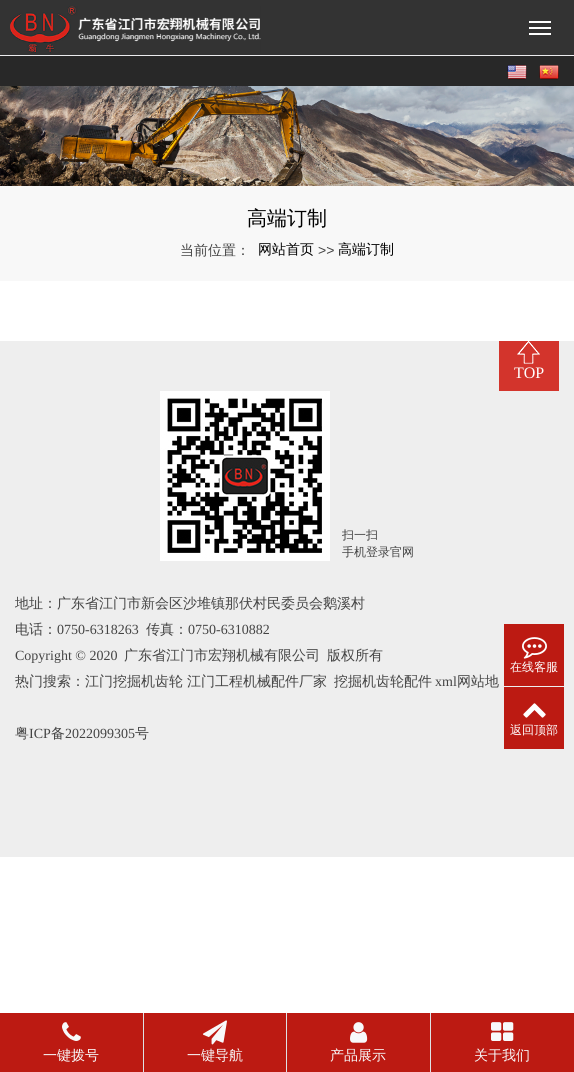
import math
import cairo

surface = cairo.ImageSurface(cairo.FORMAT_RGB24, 574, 1072)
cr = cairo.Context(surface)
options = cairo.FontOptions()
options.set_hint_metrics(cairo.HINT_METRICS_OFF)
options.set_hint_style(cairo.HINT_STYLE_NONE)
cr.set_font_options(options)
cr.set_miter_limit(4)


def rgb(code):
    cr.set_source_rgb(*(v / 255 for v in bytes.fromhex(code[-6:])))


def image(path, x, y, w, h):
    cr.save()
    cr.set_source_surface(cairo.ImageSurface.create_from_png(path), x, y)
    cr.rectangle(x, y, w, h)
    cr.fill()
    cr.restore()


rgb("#ffffff")
cr.paint()
rgb("#333333")
cr.rectangle(0, 0, 574, 55)
cr.fill()
rgb("#ececee")
cr.rectangle(0, 55, 574, 1)
cr.fill()
image("img/1.png", 10, 6, 251, 47)
for x, y, w, h, color in [
    (529, 27, 22, 2, "#ffffff"),
    (529, 21, 22, 2, "#ffffff"),
    (529, 33, 22, 2, "#ffffff"),
    (0, 56, 574, 30, "#282828"),
]:
    rgb(color)
    cr.rectangle(x, y, w, h)
    cr.fill()
image("img/2.png", 507, 64, 20, 16)
image("img/3.png", 539, 65, 20, 15)
image("img/4.png", 0, 86, 574, 100)
for x, y, w, h, color in [
    (0, 186, 574, 95, "#f8f8f8"),
    (0, 341, 574, 516, "#eeeeee"),
    (499, 341, 60, 50, "#d3342c"),
]:
    rgb(color)
    cr.rectangle(x, y, w, h)
    cr.fill()
image("img/5.png", 517, 341, 23, 23)
image("img/6.png", 160, 391, 170, 170)
rgb("#bc1a12")
cr.rectangle(504, 624, 60, 62)
cr.fill()
image("img/7.png", 522, 637, 25, 22)
cr.rectangle(504, 687, 60, 62)
cr.fill()
image("img/8.png", 523, 703, 23, 15)
cr.rectangle(0, 1013, 574, 59)
cr.fill()
rgb("#dee2e6")
cr.rectangle(143, 1013, 1, 59)
cr.fill()
image("img/9.png", 62, 1022, 19, 19)
cr.rectangle(286, 1013, 1, 59)
cr.fill()
image("img/10.png", 203, 1020, 24, 25)
cr.rectangle(430, 1013, 1, 59)
cr.fill()
image("img/11.png", 350, 1022, 18, 21)
image("img/12.png", 491, 1022, 23, 19)
cr.select_font_face("WenQuanYi Zen Hei Medium")
cr.set_font_size(20)
rgb("#000000")
cr.move_to(247, 225)
cr.show_text("高端订制")
cr.set_font_size(14)
rgb("#444444")
cr.move_to(180, 255)
cr.show_text("当前位置：")
rgb("#000000")
cr.move_to(258, 254)
cr.show_text("网站首页")
cr.select_font_face("Liberation Sans")
rgb("#444444")
cr.move_to(318, 255)
cr.show_text(">>")
cr.select_font_face("WenQuanYi Zen Hei Medium")
rgb("#000000")
cr.move_to(338, 254)
cr.show_text("高端订制")
cr.select_font_face("Liberation Serif")
cr.set_font_size(16)
rgb("#ffffff")
cr.move_to(514, 378)
cr.show_text("TOP")
cr.select_font_face("WenQuanYi Zen Hei Medium")
cr.set_font_size(12)
rgb("#444444")
cr.move_to(342, 539)
cr.show_text("扫一扫")
cr.move_to(342, 556)
cr.show_text("手机登录官网")
cr.set_font_size(14)
cr.move_to(15, 608)
cr.show_text("地址：广东省江门市新会区沙堆镇那伏村民委员会鹅溪村")
cr.move_to(15, 634)
cr.show_text("电话：")
cr.select_font_face("Liberation Serif")
cr.move_to(57, 634)
cr.show_text("0750-6318263")
cr.select_font_face("WenQuanYi Zen Hei Medium")
cr.move_to(146, 634)
cr.show_text("传真：")
cr.select_font_face("Liberation Serif")
cr.move_to(188, 634)
cr.show_text("0750-6310882")
cr.move_to(15, 660)
cr.show_text("Copyright © 2020")
cr.select_font_face("WenQuanYi Zen Hei Medium")
for x, y, s in [
    (124, 660, "广东省江门市宏翔机械有限公司"),
    (327, 660, "版权所有"),
    (15, 686, "热门搜索：江门挖掘机齿轮"),
    (187, 686, "江门工程机械配件厂家"),
    (334, 686, "挖掘机齿轮配件"),
]:
    cr.move_to(x, y)
    cr.show_text(s)
cr.select_font_face("Liberation Serif")
cr.move_to(435, 686)
cr.show_text("xml")
cr.select_font_face("WenQuanYi Zen Hei Medium")
cr.move_to(457, 686)
cr.show_text("网站地")
cr.move_to(15, 738)
cr.show_text("粤")
cr.select_font_face("Liberation Serif")
cr.move_to(29, 738)
cr.show_text("ICP")
cr.select_font_face("WenQuanYi Zen Hei Medium")
cr.move_to(51, 738)
cr.show_text("备")
cr.select_font_face("Liberation Serif")
cr.move_to(65, 738)
cr.show_text("2022099305")
cr.select_font_face("WenQuanYi Zen Hei Medium")
cr.move_to(135, 738)
cr.show_text("号")
cr.set_font_size(12)
rgb("#ffffff")
cr.move_to(510, 671)
cr.show_text("在线客服")
cr.move_to(510, 734)
cr.show_text("返回顶部")
cr.set_font_size(14)
rgb("#f8f9fa")
for x, y, s in [
    (43, 1060, "一键拨号"),
    (187, 1060, "一键导航"),
    (330, 1060, "产品展示"),
    (474, 1060, "关于我们"),
]:
    cr.move_to(x, y)
    cr.show_text(s)
surface.write_to_png("page.png")
